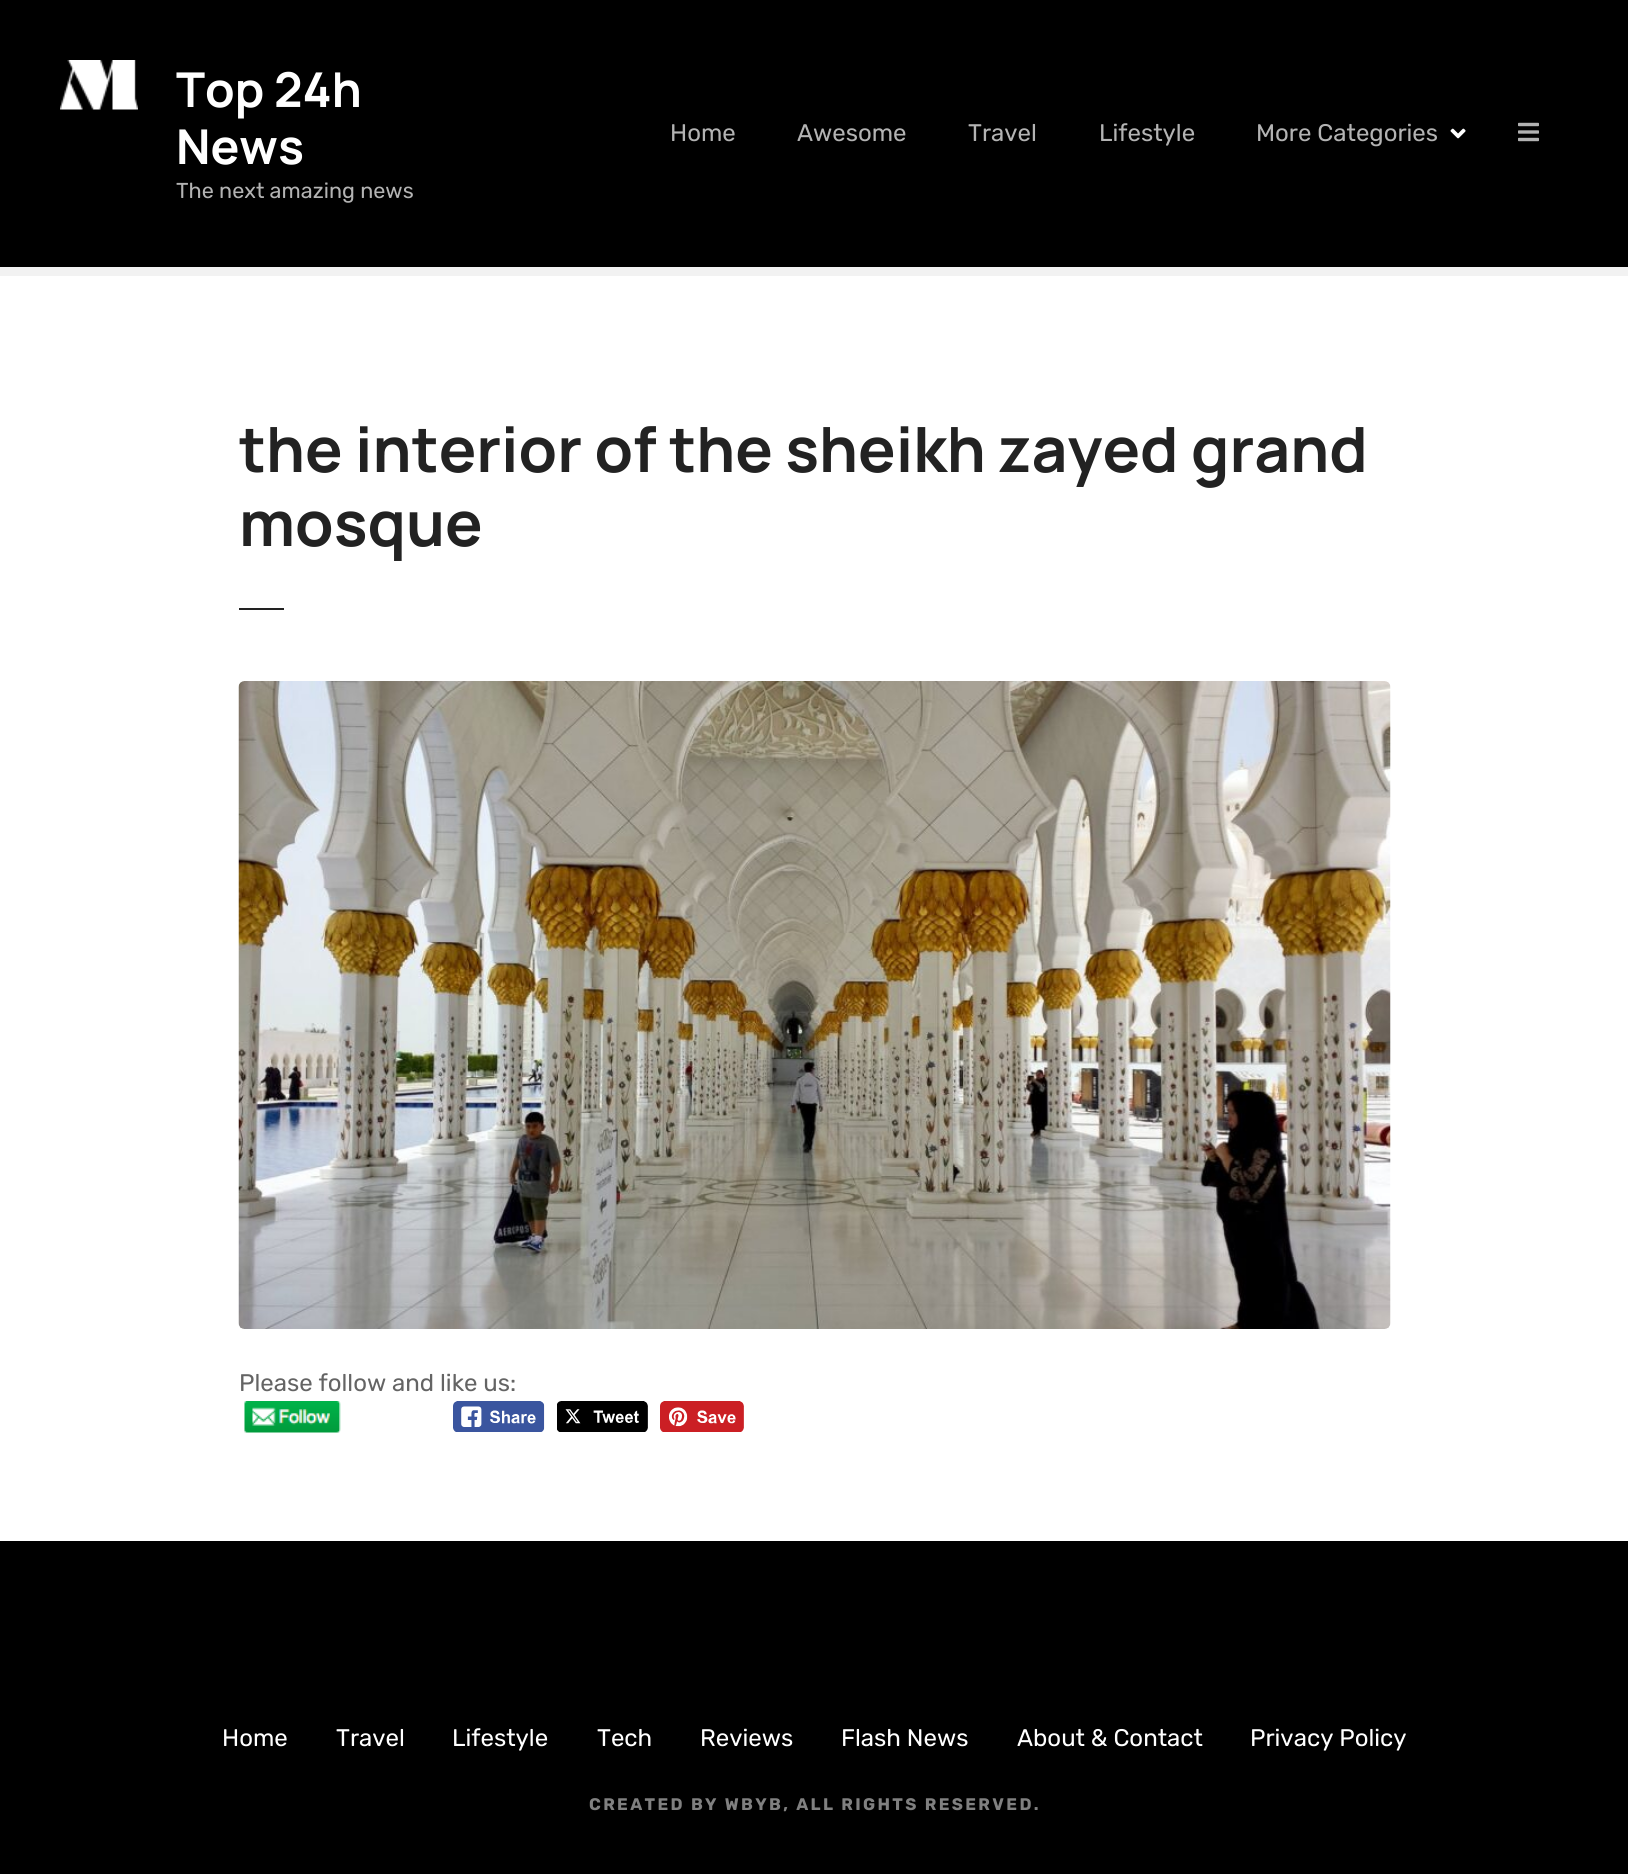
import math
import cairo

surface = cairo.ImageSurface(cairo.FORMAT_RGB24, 1628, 1874)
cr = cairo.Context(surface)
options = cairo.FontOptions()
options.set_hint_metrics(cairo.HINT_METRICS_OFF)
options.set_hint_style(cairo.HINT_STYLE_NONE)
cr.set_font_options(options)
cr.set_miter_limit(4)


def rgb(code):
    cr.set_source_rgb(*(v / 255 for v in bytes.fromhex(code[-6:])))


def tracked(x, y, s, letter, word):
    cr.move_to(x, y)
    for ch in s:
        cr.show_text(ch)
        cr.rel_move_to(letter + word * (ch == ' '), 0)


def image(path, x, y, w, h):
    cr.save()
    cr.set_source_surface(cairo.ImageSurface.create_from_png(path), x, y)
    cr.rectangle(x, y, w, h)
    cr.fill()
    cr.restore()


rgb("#ffffff")
cr.paint()
rgb("#000000")
cr.rectangle(0, 0, 1628, 267)
cr.fill()
image("img/1.png", 60, 60, 78, 50)
image("img/2.png", 1450, 128, 16, 11)
image("img/3.png", 1518, 122, 21, 20)
rgb("#f2f2f2")
cr.rectangle(0, 267, 1628, 9)
cr.fill()
rgb("#222222")
cr.rectangle(239, 608, 45, 2)
cr.fill()
image("img/4.png", 238, 681, 1153, 648)
image("img/5.png", 244, 1401, 97, 32)
image("img/6.png", 453, 1401, 92, 31)
image("img/7.png", 557, 1401, 91, 31)
image("img/8.png", 660, 1401, 84, 31)
rgb("#000000")
cr.rectangle(0, 1541, 1628, 333)
cr.fill()
cr.select_font_face("Manrope", cairo.FONT_SLANT_NORMAL, cairo.FONT_WEIGHT_BOLD)
cr.set_font_size(48)
rgb("#ffffff")
cr.move_to(176, 107)
cr.show_text("Top 24h")
cr.move_to(176, 164)
cr.show_text("News")
cr.select_font_face("Rubik")
cr.set_font_size(21.6)
rgb("#b3b3b3")
cr.move_to(176, 198)
cr.show_text("The next amazing news")
cr.set_font_size(24)
for x, y, s in [
    (670, 141, "Home"),
    (797, 141, "Awesome"),
    (968, 141, "Travel"),
    (1099, 141, "Lifestyle"),
    (1256, 141, "More Categories"),
]:
    cr.move_to(x, y)
    cr.show_text(s)
cr.select_font_face("Manrope", cairo.FONT_SLANT_NORMAL, cairo.FONT_WEIGHT_BOLD)
cr.set_font_size(62.4)
rgb("#222222")
cr.move_to(239, 472)
cr.show_text("the interior of the sheikh zayed grand")
cr.move_to(239, 546)
cr.show_text("mosque")
cr.select_font_face("Rubik")
cr.set_font_size(24)
rgb("#646464")
cr.move_to(239, 1391)
cr.show_text("Please follow and like us:")
rgb("#ffffff")
for x, y, s in [
    (222, 1746, "Home"),
    (336, 1746, "Travel"),
    (452, 1746, "Lifestyle"),
    (597, 1746, "Tech"),
    (700, 1746, "Reviews"),
    (841, 1746, "Flash News"),
    (1017, 1746, "About & Contact"),
    (1250, 1746, "Privacy Policy"),
]:
    cr.move_to(x, y)
    cr.show_text(s)
cr.select_font_face("Rubik", cairo.FONT_SLANT_NORMAL, cairo.FONT_WEIGHT_BOLD)
cr.set_font_size(16.8)
rgb("#808080")
tracked(589, 1810, "CREATED BY WBYB, ALL RIGHTS RESERVED.", 2.35, 0)
surface.write_to_png("page.png")
